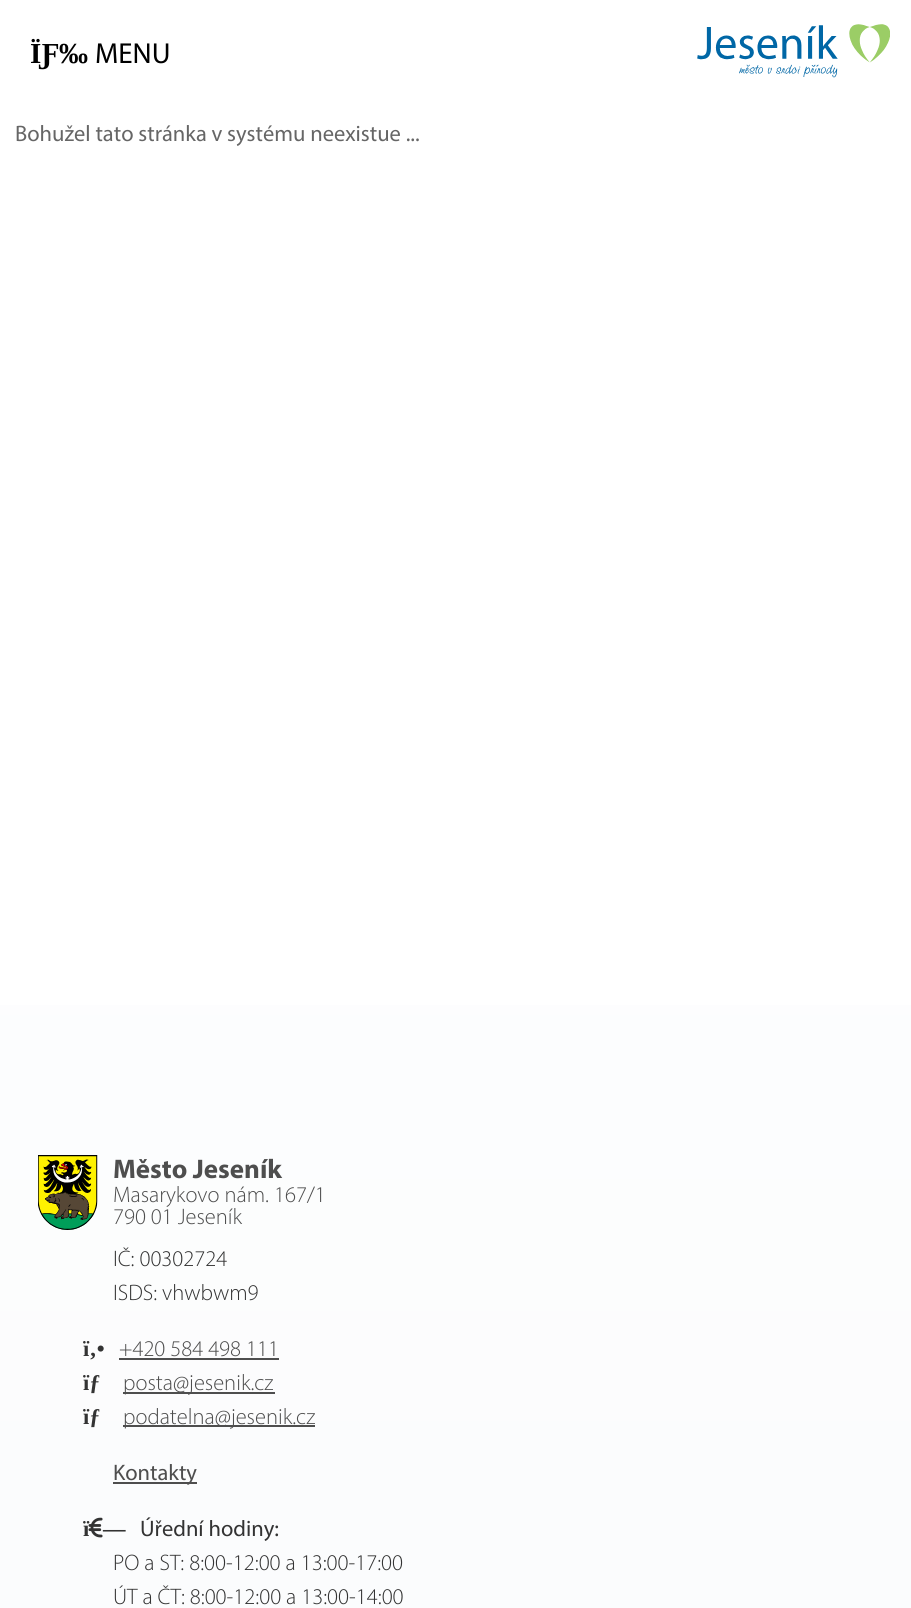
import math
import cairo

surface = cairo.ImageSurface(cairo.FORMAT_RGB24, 911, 1608)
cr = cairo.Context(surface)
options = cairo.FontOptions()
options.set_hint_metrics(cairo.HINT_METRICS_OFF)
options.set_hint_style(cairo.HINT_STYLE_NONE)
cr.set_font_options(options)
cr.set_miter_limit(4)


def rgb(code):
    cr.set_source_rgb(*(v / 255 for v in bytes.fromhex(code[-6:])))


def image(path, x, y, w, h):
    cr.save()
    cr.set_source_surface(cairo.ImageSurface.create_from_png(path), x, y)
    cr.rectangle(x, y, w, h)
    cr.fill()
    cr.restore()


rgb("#ffffff")
cr.paint()
gradient = cairo.LinearGradient(456, 0, 456, 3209)
gradient.add_color_stop_rgba(0, 1, 1, 1, 1)
gradient.add_color_stop_rgba(1, 0.969, 0.976, 0.984, 1)
cr.set_source(gradient)
cr.rectangle(0, 1005, 911, 603)
cr.fill()
image("img/1.png", 697, 24, 193, 54)
image("img/2.png", 38, 1155, 60, 75)
for x, y, w, h, color in [
    (119, 1358, 160, 2, "#4e4e4e"),
    (123, 1392, 152, 2, "#4e4e4e"),
    (123, 1425, 192, 2, "#4e4e4e"),
    (113, 1482, 84, 2, "#4e4e4e"),
]:
    rgb(color)
    cr.rectangle(x, y, w, h)
    cr.fill()
image("img/3.png", 88, 1517, 15, 21)
cr.select_font_face("Liberation Serif", cairo.FONT_SLANT_NORMAL, cairo.FONT_WEIGHT_BOLD)
cr.set_font_size(29)
rgb("#000000")
cr.move_to(30, 63)
cr.show_text("ÏƑ‰")
cr.select_font_face("Myriad")
cr.move_to(95, 63)
cr.show_text("MENU")
cr.set_font_size(22.5)
rgb("#666666")
cr.move_to(15, 141)
cr.show_text("Bohužel tato stránka v systému neexistue ...")
cr.select_font_face("Myriad", cairo.FONT_SLANT_NORMAL, cairo.FONT_WEIGHT_BOLD)
cr.set_font_size(27)
rgb("#4e4e4e")
cr.move_to(113, 1178)
cr.show_text("Město Jeseník")
cr.select_font_face("Myriad Light")
cr.set_font_size(22.5)
cr.move_to(113, 1202)
cr.show_text("Masarykovo nám. 167/1")
cr.move_to(113, 1224)
cr.show_text("790 01 Jeseník")
rgb("#333333")
cr.move_to(113, 1266)
cr.show_text("IČ: 00302724")
cr.move_to(113, 1300)
cr.show_text("ISDS: vhwbwm9")
cr.select_font_face("Liberation Serif", cairo.FONT_SLANT_NORMAL, cairo.FONT_WEIGHT_BOLD)
cr.move_to(83, 1356)
cr.show_text("ï‚•")
cr.select_font_face("Myriad Light")
rgb("#4e4e4e")
cr.move_to(119, 1356)
cr.show_text("+420 584 498 111")
cr.select_font_face("Liberation Serif", cairo.FONT_SLANT_NORMAL, cairo.FONT_WEIGHT_BOLD)
rgb("#333333")
cr.move_to(83, 1390)
cr.show_text("ïƒ")
cr.select_font_face("Myriad Light")
rgb("#4e4e4e")
cr.move_to(123, 1390)
cr.show_text("posta@jesenik.cz")
cr.select_font_face("Liberation Serif", cairo.FONT_SLANT_NORMAL, cairo.FONT_WEIGHT_BOLD)
rgb("#333333")
cr.move_to(83, 1424)
cr.show_text("ïƒ")
cr.select_font_face("Myriad Light")
rgb("#4e4e4e")
cr.move_to(123, 1424)
cr.show_text("podatelna@jesenik.cz")
cr.select_font_face("Myriad")
cr.move_to(113, 1480)
cr.show_text("Kontakty")
cr.select_font_face("Liberation Serif", cairo.FONT_SLANT_NORMAL, cairo.FONT_WEIGHT_BOLD)
rgb("#333333")
cr.move_to(83, 1536)
cr.show_text("ï")
cr.move_to(103, 1536)
cr.show_text("—")
cr.select_font_face("Myriad")
cr.move_to(140, 1536)
cr.show_text("Úřední hodiny:")
cr.select_font_face("Myriad Light")
cr.move_to(113, 1570)
cr.show_text("PO a ST: 8:00-12:00 a 13:00-17:00")
cr.move_to(113, 1604)
cr.show_text("ÚT a ČT: 8:00-12:00 a 13:00-14:00")
surface.write_to_png("page.png")
